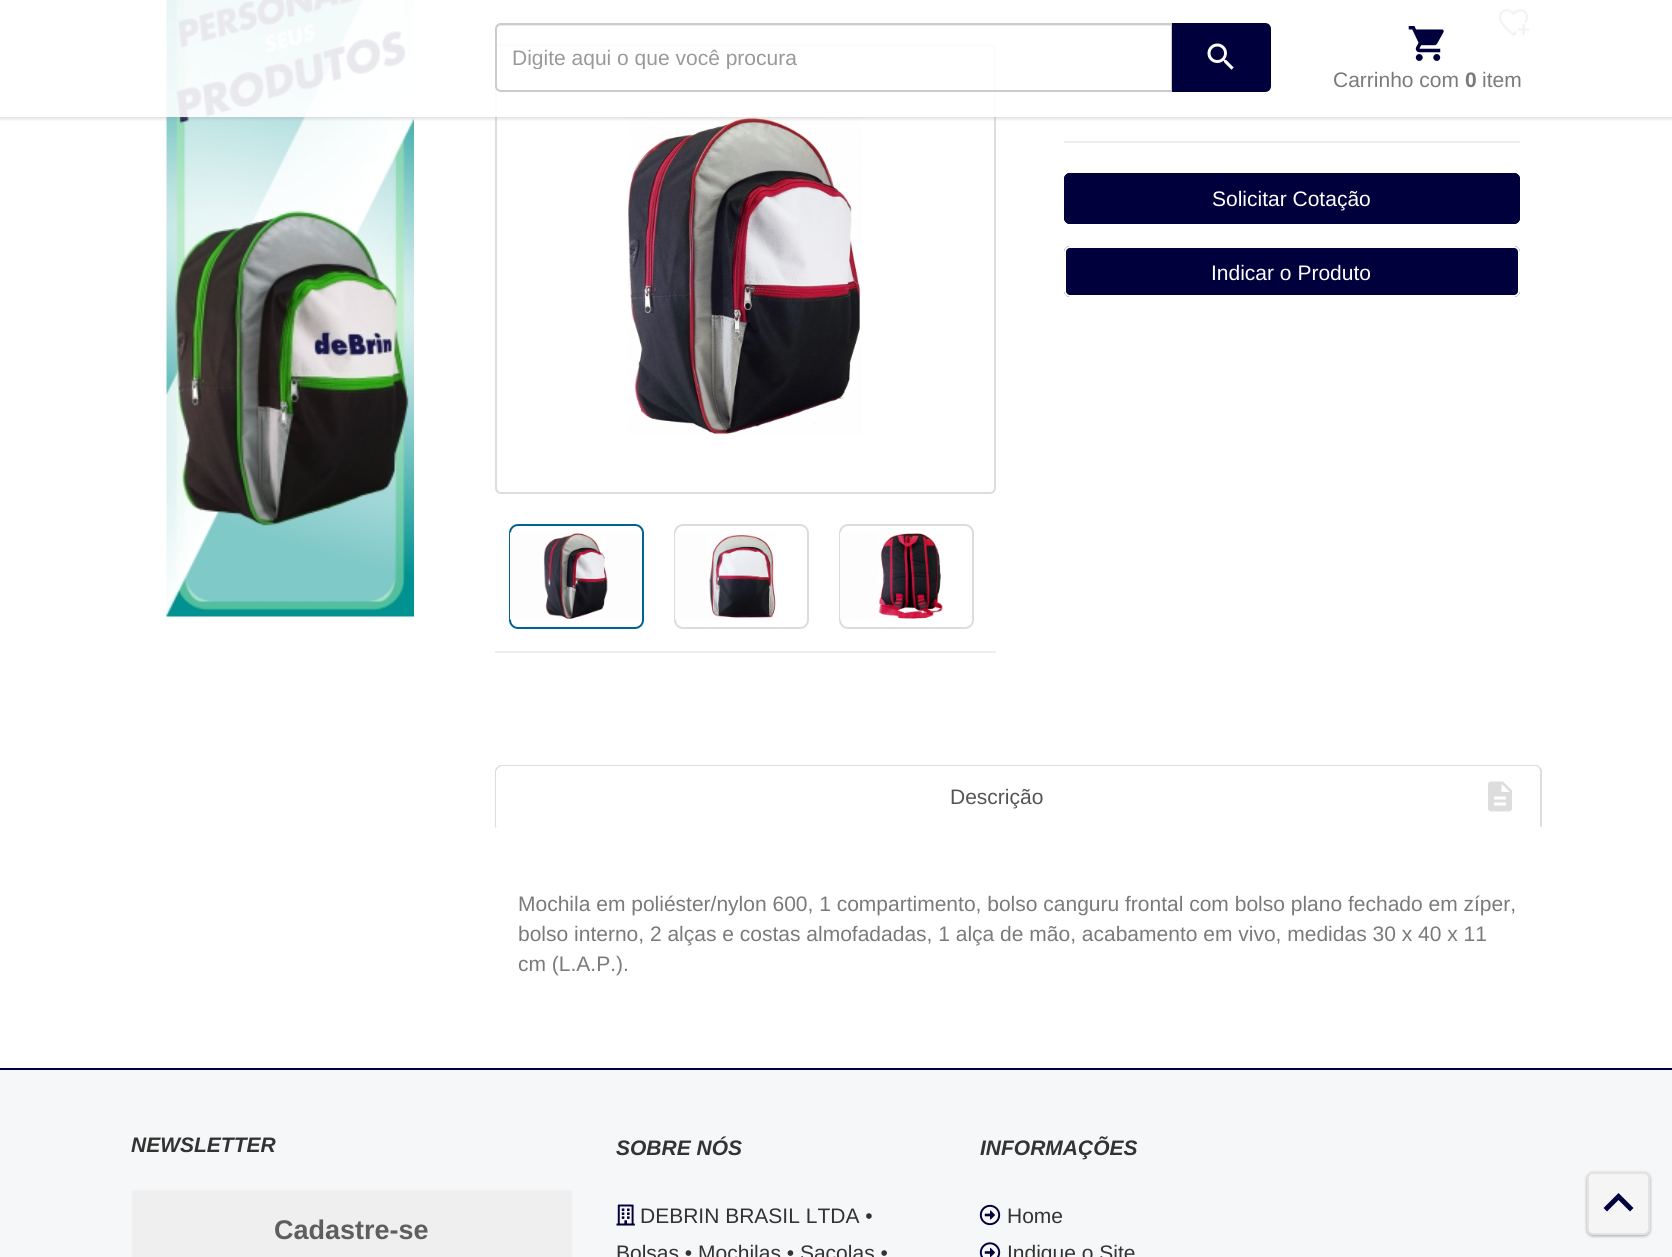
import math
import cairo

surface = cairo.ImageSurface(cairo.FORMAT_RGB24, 1672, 1257)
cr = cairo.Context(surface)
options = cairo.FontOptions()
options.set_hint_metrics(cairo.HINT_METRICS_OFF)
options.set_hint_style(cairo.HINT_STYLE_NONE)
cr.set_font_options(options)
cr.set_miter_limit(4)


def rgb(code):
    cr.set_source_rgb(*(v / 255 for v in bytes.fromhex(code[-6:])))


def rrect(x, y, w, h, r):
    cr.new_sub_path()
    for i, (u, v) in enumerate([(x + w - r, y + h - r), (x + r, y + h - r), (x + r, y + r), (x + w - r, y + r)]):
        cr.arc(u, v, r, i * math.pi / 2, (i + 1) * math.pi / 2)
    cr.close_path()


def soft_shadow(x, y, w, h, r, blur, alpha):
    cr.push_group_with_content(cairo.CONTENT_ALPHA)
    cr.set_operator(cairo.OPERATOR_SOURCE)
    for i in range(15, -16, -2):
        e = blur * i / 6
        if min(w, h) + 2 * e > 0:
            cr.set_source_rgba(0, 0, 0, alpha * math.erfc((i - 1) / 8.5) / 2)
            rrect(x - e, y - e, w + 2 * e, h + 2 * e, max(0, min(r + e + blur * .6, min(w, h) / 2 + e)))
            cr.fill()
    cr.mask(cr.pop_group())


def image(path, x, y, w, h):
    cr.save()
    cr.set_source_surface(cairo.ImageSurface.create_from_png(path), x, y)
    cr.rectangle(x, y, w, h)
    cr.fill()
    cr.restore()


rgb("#ffffff")
cr.paint()
image("img/3.png", 166, 0, 248, 617)
image("img/4.png", 1498, 9, 32, 27)
rrect(496, 45, 499, 448, 5)
rgb("#dddddd")
cr.stroke()
image("img/5.png", 627, 117, 234, 318)
cr.save()
cr.rectangle(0, 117, 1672, 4)
cr.clip()
rgb("#a0a0a0")
soft_shadow(0, 2, 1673, 117, 0, 1.5, 0.24)
soft_shadow(0, 2, 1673, 117, 0, 2, 0.12)
cr.restore()
cr.set_source_rgba(1, 1, 1, 0.9)
cr.rectangle(166, 0, 1364, 117)
cr.fill()
rgb("#ececec")
cr.new_path()
cr.move_to(501, 26)
cr.line_to(1172, 26)
cr.line_to(1172, 24)
cr.line_to(502, 24)
cr.curve_to(500, 24, 498, 26, 497, 28)
cr.curve_to(498, 27, 500, 26, 501, 26)
cr.close_path()
cr.fill()
cr.new_path()
cr.move_to(501, 24)
cr.line_to(1172, 24)
cr.line_to(1172, 91)
cr.line_to(501, 91)
cr.curve_to(498, 91, 496, 89, 496, 86)
cr.line_to(496, 29)
cr.curve_to(496, 26, 498, 24, 501, 24)
cr.close_path()
rgb("#cccccc")
cr.stroke()
rgb("#00003c")
cr.new_path()
cr.move_to(1173, 24)
cr.line_to(1265, 24)
cr.curve_to(1268, 24, 1270, 26, 1270, 29)
cr.line_to(1270, 86)
cr.curve_to(1270, 89, 1268, 91, 1265, 91)
cr.line_to(1173, 91)
cr.close_path()
cr.fill_preserve()
cr.stroke()
image("img/1.png", 1207, 43, 27, 27)
image("img/2.png", 1408, 26, 36, 35)
rrect(510, 525, 133, 103, 8)
rgb("#016392")
cr.stroke()
image("img/6.png", 510, 532, 132, 88)
rrect(675, 525, 133, 103, 8)
rgb("#dcdcdc")
cr.stroke()
image("img/7.png", 675, 532, 101, 88)
rrect(840, 525, 133, 103, 8)
cr.stroke()
image("img/8.png", 840, 532, 103, 88)
rgb("#eeeeee")
cr.rectangle(495, 651, 501, 2)
cr.fill()
cr.rectangle(1064, 141, 456, 2)
cr.fill()
rgb("#00003c")
rrect(1064, 173, 456, 51, 6)
cr.fill()
rgb("#000038")
cr.new_path()
cr.move_to(1070, 176)
cr.line_to(1514, 176)
cr.curve_to(1516, 176, 1518, 178, 1518, 180)
cr.curve_to(1518, 177, 1516, 174, 1513, 174)
cr.line_to(1070, 174)
cr.curve_to(1067, 174, 1065, 177, 1065, 180)
cr.curve_to(1065, 178, 1067, 176, 1070, 176)
cr.close_path()
cr.fill()
rrect(1065, 174, 454, 49, 5)
rgb("#00003c")
cr.stroke()
rrect(1064, 246, 456, 51, 6)
cr.fill()
rgb("#000038")
cr.new_path()
cr.move_to(1070, 249)
cr.line_to(1514, 249)
cr.curve_to(1516, 249, 1518, 251, 1518, 254)
cr.curve_to(1518, 251, 1516, 248, 1513, 248)
cr.line_to(1070, 248)
cr.curve_to(1067, 248, 1065, 251, 1065, 254)
cr.curve_to(1065, 251, 1067, 249, 1070, 249)
cr.close_path()
cr.fill()
rrect(1065, 247, 454, 49, 5)
rgb("#ffffff")
cr.stroke()
rgb("#dddddd")
cr.new_path()
cr.move_to(501, 765)
cr.curve_to(500, 765, 498, 766, 497, 767)
cr.line_to(498, 768)
cr.line_to(501, 766)
cr.line_to(1536, 766)
cr.curve_to(1537, 766, 1538, 767, 1539, 768)
cr.line_to(1540, 767)
cr.curve_to(1539, 766, 1538, 765, 1536, 765)
cr.close_path()
cr.fill()
cr.new_path()
cr.move_to(1542, 828)
cr.line_to(1542, 771)
cr.curve_to(1542, 770, 1541, 768, 1540, 767)
cr.line_to(1539, 768)
cr.line_to(1540, 771)
cr.line_to(1540, 826)
cr.close_path()
cr.fill()
rgb("#ffffff")
cr.new_path()
cr.move_to(1542, 828)
cr.line_to(1540, 826)
cr.line_to(497, 826)
cr.line_to(495, 828)
cr.close_path()
cr.fill()
rgb("#dddddd")
cr.new_path()
cr.move_to(495, 828)
cr.line_to(497, 826)
cr.line_to(496, 826)
cr.line_to(496, 771)
cr.line_to(498, 768)
cr.line_to(497, 767)
cr.curve_to(496, 768, 495, 770, 495, 771)
cr.close_path()
cr.fill()
image("img/9.png", 1488, 781, 24, 31)
for x, y, w, h, color in [
    (0, 1070, 1672, 187, "#f6f7f8"),
    (0, 1068, 1672, 2, "#00003c"),
    (132, 1190, 440, 67, "#efefef"),
]:
    rgb(color)
    cr.rectangle(x, y, w, h)
    cr.fill()
image("img/10.png", 616, 1204, 19, 22)
image("img/11.png", 979, 1204, 22, 22)
image("img/12.png", 979, 1242, 22, 15)
rgb("#000000")
soft_shadow(1587, 1173, 63, 63, 6, 1.5, 0.24)
soft_shadow(1587, 1173, 63, 63, 6, 2, 0.12)
rgb("#f5f5f5")
rrect(1588, 1173, 61, 61, 5)
cr.fill_preserve()
rgb("#e3e3e3")
cr.stroke()
rgb("#00003c")
cr.new_path()
cr.move_to(1607, 1211.5)
cr.line_to(1603.5, 1208)
cr.line_to(1618.5, 1193)
cr.line_to(1633.5, 1208)
cr.line_to(1630, 1211.5)
cr.line_to(1618.5, 1200)
cr.close_path()
cr.fill()
cr.save()
cr.rectangle(512, 45, 645, 24)
cr.clip()
cr.select_font_face("Liberation Sans")
cr.set_font_size(21)
rgb("#999999")
cr.move_to(512, 65)
cr.show_text("Digite aqui o que você procura")
cr.restore()
cr.select_font_face("Liberation Sans")
cr.set_font_size(21)
rgb("#7b7a7a")
cr.move_to(1333, 87)
cr.show_text("Carrinho com")
cr.select_font_face("Liberation Sans", cairo.FONT_SLANT_NORMAL, cairo.FONT_WEIGHT_BOLD)
cr.move_to(1465, 87)
cr.show_text("0")
cr.select_font_face("Liberation Sans")
cr.move_to(1482, 87)
cr.show_text("item")
rgb("#ffffff")
cr.move_to(1212, 206)
cr.show_text("Solicitar Cotação")
cr.move_to(1211, 280)
cr.show_text("Indicar o Produto")
rgb("#555555")
cr.move_to(950, 804)
cr.show_text("Descrição")
rgb("#7b7a7a")
for x, y, s in [
    (518, 911, "Mochila em poliéster/nylon 600, 1 compartimento, bolso canguru frontal com bolso plano fechado em zíper,"),
    (518, 941, "bolso interno, 2 alças e costas almofadadas, 1 alça de mão, acabamento em vivo, medidas 30 x 40 x 11"),
    (518, 971, "cm (L.A.P.)."),
]:
    cr.move_to(x, y)
    cr.show_text(s)
cr.select_font_face("Liberation Sans", cairo.FONT_SLANT_ITALIC, cairo.FONT_WEIGHT_BOLD)
rgb("#333333")
cr.move_to(131, 1152)
cr.show_text("NEWSLETTER")
cr.select_font_face("Liberation Sans", cairo.FONT_SLANT_NORMAL, cairo.FONT_WEIGHT_BOLD)
cr.set_font_size(27)
rgb("#5e5e5e")
cr.move_to(274, 1239)
cr.show_text("Cadastre-se")
cr.select_font_face("Liberation Sans", cairo.FONT_SLANT_ITALIC, cairo.FONT_WEIGHT_BOLD)
cr.set_font_size(21)
rgb("#333333")
cr.move_to(616, 1155)
cr.show_text("SOBRE NÓS")
cr.select_font_face("Liberation Sans")
cr.move_to(640, 1223)
cr.show_text("DEBRIN BRASIL LTDA •")
cr.move_to(616, 1260)
cr.show_text("Bolsas • Mochilas • Sacolas •")
cr.select_font_face("Liberation Sans", cairo.FONT_SLANT_ITALIC, cairo.FONT_WEIGHT_BOLD)
cr.move_to(980, 1155)
cr.show_text("INFORMAÇÕES")
cr.select_font_face("Liberation Sans")
cr.move_to(1007, 1223)
cr.show_text("Home")
cr.move_to(1007, 1260)
cr.show_text("Indique o Site")
surface.write_to_png("page.png")
